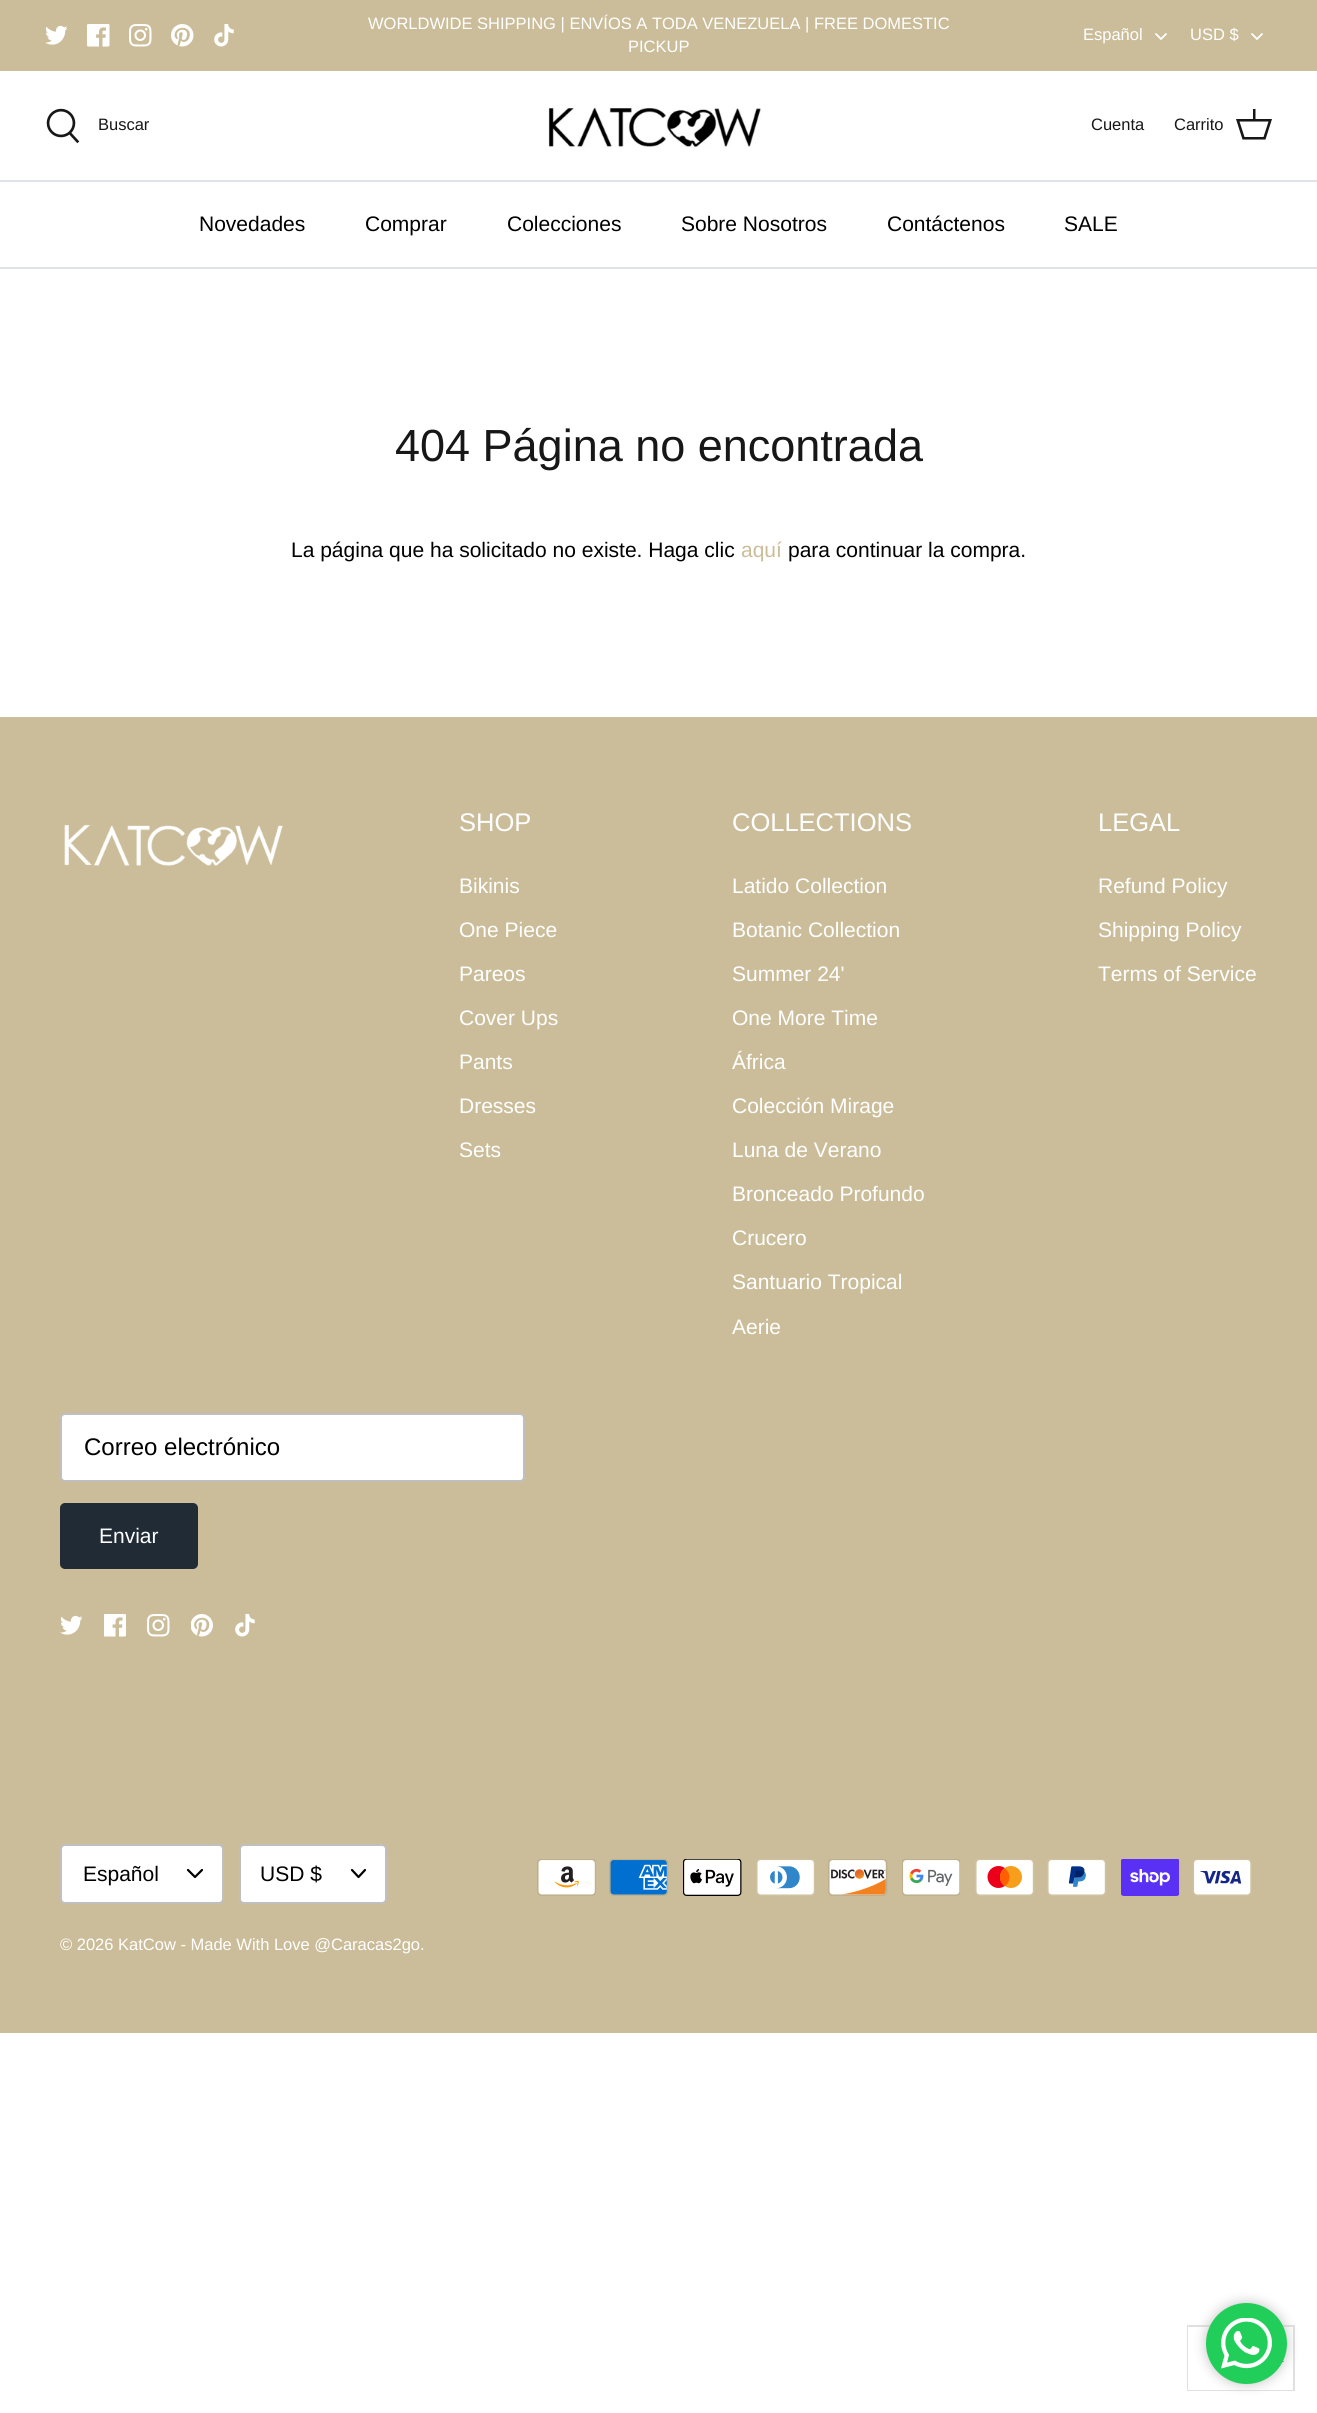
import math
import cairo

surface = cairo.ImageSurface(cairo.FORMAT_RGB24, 1317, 2413)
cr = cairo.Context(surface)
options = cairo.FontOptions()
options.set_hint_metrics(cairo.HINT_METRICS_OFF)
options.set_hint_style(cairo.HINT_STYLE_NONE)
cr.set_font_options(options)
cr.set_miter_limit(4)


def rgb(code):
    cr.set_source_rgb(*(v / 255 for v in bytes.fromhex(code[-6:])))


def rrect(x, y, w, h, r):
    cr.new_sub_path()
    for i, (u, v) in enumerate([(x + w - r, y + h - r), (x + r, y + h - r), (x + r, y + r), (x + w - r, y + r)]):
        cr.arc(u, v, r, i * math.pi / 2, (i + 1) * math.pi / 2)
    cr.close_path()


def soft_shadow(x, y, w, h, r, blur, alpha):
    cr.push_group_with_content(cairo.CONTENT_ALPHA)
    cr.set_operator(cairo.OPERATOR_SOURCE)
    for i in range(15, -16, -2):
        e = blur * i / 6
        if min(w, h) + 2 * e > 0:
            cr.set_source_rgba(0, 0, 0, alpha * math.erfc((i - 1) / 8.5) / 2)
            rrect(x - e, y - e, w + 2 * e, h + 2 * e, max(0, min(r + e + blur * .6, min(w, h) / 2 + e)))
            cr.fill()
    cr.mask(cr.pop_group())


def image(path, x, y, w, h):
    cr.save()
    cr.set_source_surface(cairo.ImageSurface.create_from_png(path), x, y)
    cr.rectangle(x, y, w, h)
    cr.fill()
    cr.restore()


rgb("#ffffff")
cr.paint()
rgb("#cbbd99")
cr.rectangle(0, 0, 1317, 71)
cr.fill()
image("img/1.png", 45, 25, 23, 20)
image("img/2.png", 87, 24, 23, 23)
image("img/3.png", 129, 24, 23, 23)
image("img/4.png", 171, 24, 23, 23)
image("img/5.png", 214, 24, 20, 23)
cr.new_path()
cr.move_to(1156, 34)
cr.line_to(1161, 39)
cr.line_to(1166, 34)
rgb("#ffffff")
cr.set_line_width(1.8)
cr.set_line_cap(cairo.LINE_CAP_ROUND)
cr.set_line_join(cairo.LINE_JOIN_ROUND)
cr.stroke()
cr.new_path()
cr.move_to(1252, 34)
cr.line_to(1257, 39)
cr.line_to(1262, 34)
cr.stroke()
rgb("#dfe3e8")
cr.rectangle(0, 180, 1317, 2)
cr.fill()
image("img/6.png", 46, 108, 34, 36)
image("img/7.png", 548, 107, 213, 41)
rgb("#171717")
cr.new_path()
cr.move_to(1253, 119)
cr.line_to(1253, 109)
cr.line_to(1255.5, 109)
cr.line_to(1255.5, 119)
cr.line_to(1272, 119)
cr.line_to(1265.5, 139.5)
cr.line_to(1242.5, 139.5)
cr.line_to(1236, 119)
cr.close_path()
cr.move_to(1239.5, 121.5)
cr.line_to(1244.5, 137)
cr.line_to(1263.5, 137)
cr.line_to(1268.5, 121.5)
cr.close_path()
cr.fill()
rgb("#dfe3e8")
cr.rectangle(0, 267, 1317, 2)
cr.fill()
rgb("#cbbd99")
cr.rectangle(0, 717, 1317, 1316)
cr.fill()
image("img/8.png", 64, 825, 219, 41)
rgb("#ffffff")
rrect(61, 1414, 463, 67, 4)
cr.fill_preserve()
rgb("#bfbfbf")
cr.set_line_width(2)
cr.set_line_cap(cairo.LINE_CAP_BUTT)
cr.set_line_join(cairo.LINE_JOIN_MITER)
cr.stroke()
rgb("#212b36")
rrect(61, 1504, 136, 64, 4)
cr.fill_preserve()
cr.stroke()
image("img/1.png", 60, 1615, 23, 20)
image("img/9.png", 104, 1614, 22, 23)
image("img/3.png", 147, 1614, 23, 23)
image("img/10.png", 191, 1614, 22, 23)
image("img/5.png", 235, 1614, 20, 23)
rgb("#ffffff")
rrect(61, 1845, 162, 58, 4)
cr.fill_preserve()
rgb("#bfbfbf")
cr.stroke()
cr.new_path()
cr.move_to(188, 1870)
cr.line_to(195, 1877)
cr.line_to(202, 1870)
rgb("#000000")
cr.set_line_width(2.2)
cr.set_line_cap(cairo.LINE_CAP_ROUND)
cr.set_line_join(cairo.LINE_JOIN_ROUND)
cr.stroke()
rgb("#ffffff")
rrect(240, 1845, 146, 58, 4)
cr.fill_preserve()
rgb("#bfbfbf")
cr.set_line_width(2)
cr.set_line_cap(cairo.LINE_CAP_BUTT)
cr.set_line_join(cairo.LINE_JOIN_MITER)
cr.stroke()
cr.new_path()
cr.move_to(352, 1870)
cr.line_to(358.5, 1877)
cr.line_to(365, 1870)
rgb("#000000")
cr.set_line_width(2.2)
cr.set_line_cap(cairo.LINE_CAP_ROUND)
cr.set_line_join(cairo.LINE_JOIN_ROUND)
cr.stroke()
image("img/11.png", 537, 1859, 59, 37)
image("img/12.png", 609, 1859, 60, 37)
image("img/13.png", 683, 1859, 59, 37)
image("img/14.png", 756, 1859, 59, 37)
image("img/15.png", 828, 1859, 60, 37)
image("img/16.png", 902, 1859, 58, 37)
image("img/17.png", 975, 1859, 59, 37)
image("img/18.png", 1047, 1859, 59, 37)
image("img/19.png", 1121, 1859, 58, 37)
image("img/20.png", 1193, 1859, 59, 37)
cr.rectangle(1188, 2326, 106, 64)
rgb("#e0e0e0")
cr.set_line_width(2)
cr.set_line_cap(cairo.LINE_CAP_BUTT)
cr.set_line_join(cairo.LINE_JOIN_MITER)
cr.stroke()
rgb("#ffffff")
cr.rectangle(1188, 2327, 105, 63)
cr.fill()
rgb("#000000")
cr.set_fill_rule(cairo.FILL_RULE_EVEN_ODD)
cr.new_path()
cr.move_to(1269, 2362)
cr.line_to(1276.5, 2354)
cr.line_to(1284, 2362)
cr.close_path()
cr.fill()
rgb("#c2c2c2")
soft_shadow(1206, 2303, 81, 81, 40.5, 6, 1)
rgb("#22ce5a")
cr.arc(1246.5, 2343.5, 40.5, 0, 2 * math.pi)
cr.fill()
image("img/21.png", 1221, 2318, 51, 51)
cr.select_font_face("Arimo")
cr.set_font_size(16.5)
rgb("#ffffff")
for x, y, s in [
    (368, 29, "WORLDWIDE SHIPPING | ENVÍOS A TODA VENEZUELA | FREE DOMESTIC"),
    (628, 52, "PICKUP"),
    (1083, 40, "Español"),
    (1190, 40, "USD $"),
]:
    cr.move_to(x, y)
    cr.show_text(s)
rgb("#171717")
for x, y, s in [
    (98, 130, "Buscar"),
    (1091, 130, "Cuenta"),
    (1174, 130, "Carrito"),
]:
    cr.move_to(x, y)
    cr.show_text(s)
cr.set_font_size(21)
rgb("#000000")
for x, y, s in [
    (199, 231, "Novedades"),
    (365, 231, "Comprar"),
    (507, 231, "Colecciones"),
    (681, 231, "Sobre Nosotros"),
    (887, 231, "Contáctenos"),
    (1064, 231, "SALE"),
]:
    cr.move_to(x, y)
    cr.show_text(s)
cr.set_font_size(45)
rgb("#171717")
cr.move_to(395, 461)
cr.show_text("404 Página no encontrada")
cr.set_font_size(21)
rgb("#000000")
cr.move_to(291, 557)
cr.show_text("La página que ha solicitado no existe. Haga clic")
rgb("#cbbd99")
cr.move_to(741, 557)
cr.show_text("aquí")
rgb("#000000")
cr.move_to(788, 557)
cr.show_text("para continuar la compra.")
cr.set_font_size(25.5)
rgb("#ffffff")
cr.move_to(459, 831)
cr.show_text("SHOP")
cr.set_font_size(21)
for x, y, s in [
    (459, 893, "Bikinis"),
    (459, 937, "One Piece"),
    (459, 981, "Pareos"),
    (459, 1025, "Cover Ups"),
    (459, 1069, "Pants"),
    (459, 1113, "Dresses"),
    (459, 1157, "Sets"),
]:
    cr.move_to(x, y)
    cr.show_text(s)
cr.set_font_size(25.5)
cr.move_to(732, 831)
cr.show_text("COLLECTIONS")
cr.set_font_size(21)
for x, y, s in [
    (732, 893, "Latido Collection"),
    (732, 937, "Botanic Collection"),
    (732, 981, "Summer 24'"),
    (732, 1025, "One More Time"),
    (732, 1069, "África"),
    (732, 1113, "Colección Mirage"),
    (732, 1157, "Luna de Verano"),
    (732, 1201, "Bronceado Profundo"),
    (732, 1245, "Crucero"),
    (732, 1289, "Santuario Tropical"),
    (732, 1334, "Aerie"),
]:
    cr.move_to(x, y)
    cr.show_text(s)
cr.set_font_size(25.5)
cr.move_to(1098, 831)
cr.show_text("LEGAL")
cr.set_font_size(21)
for x, y, s in [
    (1098, 893, "Refund Policy"),
    (1098, 937, "Shipping Policy"),
    (1098, 981, "Terms of Service"),
]:
    cr.move_to(x, y)
    cr.show_text(s)
cr.set_font_size(24)
rgb("#000000")
cr.move_to(84, 1455)
cr.show_text("Correo electrónico")
cr.set_font_size(21)
rgb("#ffffff")
cr.move_to(99, 1543)
cr.show_text("Enviar")
rgb("#000000")
cr.move_to(83, 1881)
cr.show_text("Español")
cr.move_to(260, 1881)
cr.show_text("USD $")
cr.set_font_size(16.5)
rgb("#ffffff")
cr.move_to(60, 1950)
cr.show_text("© 2026 KatCow - Made With Love @Caracas2go.")
surface.write_to_png("page.png")
